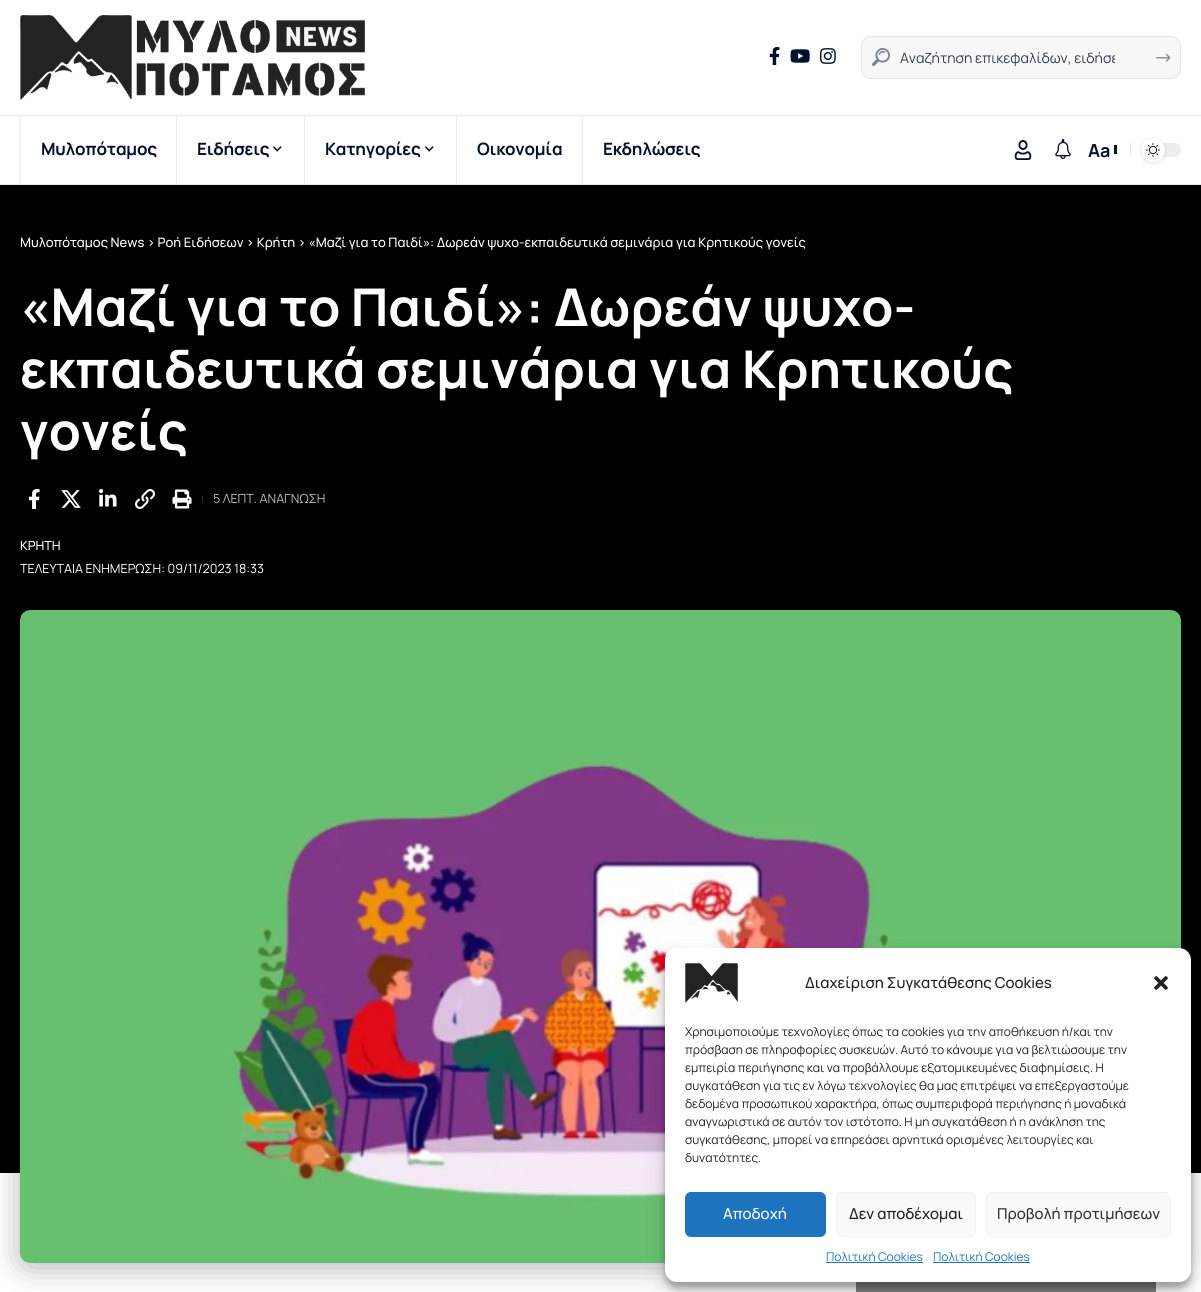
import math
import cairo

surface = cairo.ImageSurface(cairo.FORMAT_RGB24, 1201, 1292)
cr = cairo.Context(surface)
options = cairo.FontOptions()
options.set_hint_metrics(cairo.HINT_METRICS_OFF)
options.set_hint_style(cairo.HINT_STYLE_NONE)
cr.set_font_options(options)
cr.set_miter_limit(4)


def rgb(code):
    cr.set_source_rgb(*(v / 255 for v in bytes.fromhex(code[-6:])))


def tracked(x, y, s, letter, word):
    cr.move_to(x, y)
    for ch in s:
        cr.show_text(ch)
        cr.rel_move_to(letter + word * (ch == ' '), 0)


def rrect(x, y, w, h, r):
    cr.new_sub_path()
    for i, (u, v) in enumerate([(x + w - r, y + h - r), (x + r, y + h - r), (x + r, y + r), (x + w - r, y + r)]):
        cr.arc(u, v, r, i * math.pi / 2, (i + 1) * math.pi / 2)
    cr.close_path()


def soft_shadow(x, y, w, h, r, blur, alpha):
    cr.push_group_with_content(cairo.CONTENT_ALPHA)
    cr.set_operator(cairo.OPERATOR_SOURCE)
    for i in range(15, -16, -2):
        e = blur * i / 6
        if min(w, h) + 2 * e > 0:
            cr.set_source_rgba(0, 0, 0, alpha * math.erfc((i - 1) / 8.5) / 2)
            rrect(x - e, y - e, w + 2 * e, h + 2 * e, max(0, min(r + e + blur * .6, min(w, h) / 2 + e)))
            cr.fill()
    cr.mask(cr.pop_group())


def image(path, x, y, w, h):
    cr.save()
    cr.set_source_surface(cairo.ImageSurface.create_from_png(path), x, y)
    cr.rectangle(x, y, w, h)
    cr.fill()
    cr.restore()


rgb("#ffffff")
cr.paint()
for x, y, w, h, color in [
    (0, 184, 1201, 1, "#ededed"),
    (582, 115, 1, 70, "#ededed"),
    (582, 184, 1, 1, "#dedede"),
    (456, 115, 1, 70, "#ededed"),
    (456, 184, 1, 1, "#dedede"),
    (304, 115, 1, 70, "#ededed"),
    (304, 184, 1, 1, "#dedede"),
    (176, 115, 1, 70, "#ededed"),
    (176, 184, 1, 1, "#dedede"),
    (20, 115, 1, 70, "#ededed"),
    (20, 184, 1, 1, "#dedede"),
]:
    rgb(color)
    cr.rectangle(x, y, w, h)
    cr.fill()
image("img/1.png", 20, 15, 345, 85)
image("img/2.png", 769, 47, 11, 18)
image("img/3.png", 790, 49, 20, 14)
image("img/4.png", 820, 48, 16, 16)
rgb("#f7f7f7")
rrect(861, 36, 320, 43, 10)
cr.fill()
rrect(861.5, 36.5, 319, 42, 9.5)
cr.set_source_rgba(0.533, 0.533, 0.533, 0.15)
cr.set_line_width(1)
cr.stroke()
image("img/5.png", 872, 48, 18, 18)
image("img/6.png", 1156, 54, 15, 8)
for x, y, w, h, color in [
    (0, 115, 1201, 1, "#ededed"),
    (582, 115, 1, 1, "#dedede"),
    (456, 115, 1, 1, "#dedede"),
    (304, 115, 1, 1, "#dedede"),
    (176, 115, 1, 1, "#dedede"),
    (20, 115, 1, 1, "#dedede"),
]:
    rgb(color)
    cr.rectangle(x, y, w, h)
    cr.fill()
image("img/7.png", 272, 146, 10, 6)
image("img/7.png", 424, 146, 10, 6)
image("img/8.png", 1014, 140, 18, 20)
image("img/9.png", 1055, 139, 16, 20)
rgb("#04102f")
cr.rectangle(1114, 145, 3, 9)
cr.fill()
rgb("#eaeaea")
cr.rectangle(1130, 143, 1, 14)
cr.fill()
rgb("#ededed")
rrect(1141, 143, 40, 14, 7)
cr.fill()
rgb("#000000")
soft_shadow(1141, 139, 24, 24, 12, 2, 0.12)
rgb("#ffffff")
cr.arc(1153, 150, 12, 0, 2 * math.pi)
cr.fill()
image("img/10.png", 1146, 143, 14, 14)
rgb("#000000")
cr.rectangle(0, 185, 1201, 988)
cr.fill()
image("img/11.png", 28, 489, 12, 20)
image("img/12.png", 61, 490, 20, 18)
image("img/13.png", 99, 489, 18, 18)
image("img/14.png", 135, 489, 20, 20)
image("img/15.png", 172, 489, 20, 20)
rgb("#2f2f2f")
cr.rectangle(202, 496, 1, 6)
cr.fill()
rgb("#808080")
cr.rectangle(856, 1282, 300, 10)
cr.fill()
rgb("#000000")
soft_shadow(20, 614, 1161, 653, 10, 15, 0.3)
image("img/16.png", 20, 610, 1161, 653)
soft_shadow(665, 954, 526, 334, 12, 3, 0.23)
soft_shadow(665, 958, 526, 334, 12, 10, 0.19)
rgb("#ffffff")
rrect(665, 948, 526, 334, 12)
cr.fill()
image("img/17.png", 685, 963, 53, 40)
image("img/18.png", 1154, 976, 14, 14)
rgb("#1e73be")
rrect(685.5, 1192.5, 140, 44, 5.5)
cr.fill_preserve()
cr.stroke()
rgb("#f9f9f9")
rrect(836.5, 1192.5, 139, 44, 5.5)
cr.fill_preserve()
rgb("#f2f2f2")
cr.stroke()
rgb("#f9f9f9")
rrect(986.5, 1192.5, 184, 44, 5.5)
cr.fill_preserve()
rgb("#f2f2f2")
cr.stroke()
rgb("#1e73be")
cr.rectangle(826, 1262, 97, 1)
cr.fill()
cr.rectangle(933, 1262, 97, 1)
cr.fill()
cr.save()
rrect(900, 37, 215, 41, 7)
cr.clip()
cr.select_font_face("Manrope")
cr.set_font_size(14)
rgb("#353e57")
cr.move_to(900, 63)
cr.show_text("Αναζήτηση επικεφαλίδων, ειδήσε")
cr.restore()
cr.select_font_face("Manrope", cairo.FONT_SLANT_NORMAL, cairo.FONT_WEIGHT_BOLD)
cr.set_font_size(17)
rgb("#04102f")
for x, y, s in [
    (41, 155, "Μυλοπόταμος"),
    (197, 155, "Ειδήσεις"),
    (325, 155, "Κατηγορίες"),
    (477, 155, "Οικονομία"),
    (603, 155, "Εκδηλώσεις"),
]:
    tracked(x, y, s, -0.25, 0)
cr.set_font_size(18)
cr.move_to(1088, 157)
cr.show_text("Aa")
cr.select_font_face("Manrope Medium")
cr.set_font_size(13)
rgb("#ffffff")
cr.move_to(20, 247)
cr.show_text("Μυλοπόταμος News > Ροή Ειδήσεων > Κρήτη > «Μαζί για το Παιδί»: Δωρεάν ψυχο-εκπαιδευτικά σεμινάρια για Κρητικούς γονείς")
cr.select_font_face("Manrope", cairo.FONT_SLANT_NORMAL, cairo.FONT_WEIGHT_BOLD)
cr.set_font_size(52)
for x, y, s in [
    (20, 326, "«Μαζί για το Παιδί»: Δωρεάν ψυχο-"),
    (20, 388, "εκπαιδευτικά σεμινάρια για Κρητικούς"),
    (20, 450, "γονείς"),
]:
    cr.move_to(x, y)
    cr.show_text(s)
cr.select_font_face("Manrope")
cr.set_font_size(12.6)
rgb("#bbbbbb")
cr.move_to(213, 503)
cr.show_text("5 ΛΕΠΤ. ΑΝΑΓΝΩΣΗ")
cr.select_font_face("Manrope Medium")
rgb("#ffffff")
cr.move_to(20, 550)
cr.show_text("ΚΡΗΤΗ")
cr.select_font_face("Manrope")
cr.move_to(20, 573)
cr.show_text("ΤΕΛΕΥΤΑΙΑ ΕΝΗΜΕΡΩΣΗ: 09/11/2023 18:33")
cr.select_font_face("Manrope Medium")
cr.set_font_size(15)
rgb("#222222")
cr.move_to(805, 988)
cr.show_text("Διαχείριση Συγκατάθεσης Cookies")
cr.select_font_face("Manrope")
cr.set_font_size(12)
for x, y, s in [
    (685, 1036, "Χρησιμοποιούμε τεχνολογίες όπως τα cookies για την αποθήκευση ή/και την"),
    (685, 1054, "πρόσβαση σε πληροφορίες συσκευών. Αυτό το κάνουμε για να βελτιώσουμε την"),
    (685, 1072, "εμπειρία περιήγησης και να προβάλλουμε εξατομικευμένες διαφημίσεις. Η"),
    (685, 1090, "συγκατάθεση για τις εν λόγω τεχνολογίες θα μας επιτρέψει να επεξεργαστούμε"),
    (685, 1108, "δεδομένα προσωπικού χαρακτήρα, όπως συμπεριφορά περιήγησης ή μοναδικά"),
    (685, 1126, "αναγνωριστικά σε αυτόν τον ιστότοπο. Η μη συγκατάθεση ή η ανάκληση της"),
    (685, 1144, "συγκατάθεσης, μπορεί να επηρεάσει αρνητικά ορισμένες λειτουργίες και"),
    (685, 1162, "δυνατότητες."),
]:
    cr.move_to(x, y)
    cr.show_text(s)
cr.select_font_face("Manrope Medium")
cr.set_font_size(15)
rgb("#ffffff")
cr.move_to(723, 1219)
cr.show_text("Αποδοχή")
rgb("#222222")
cr.move_to(849, 1219)
cr.show_text("Δεν αποδέχομαι")
rgb("#333333")
cr.move_to(997, 1219)
cr.show_text("Προβολή προτιμήσεων")
cr.select_font_face("Manrope")
cr.set_font_size(12)
rgb("#1e73be")
cr.move_to(826, 1261)
cr.show_text("Πολιτική Cookies")
cr.move_to(933, 1261)
cr.show_text("Πολιτική Cookies")
surface.write_to_png("page.png")
